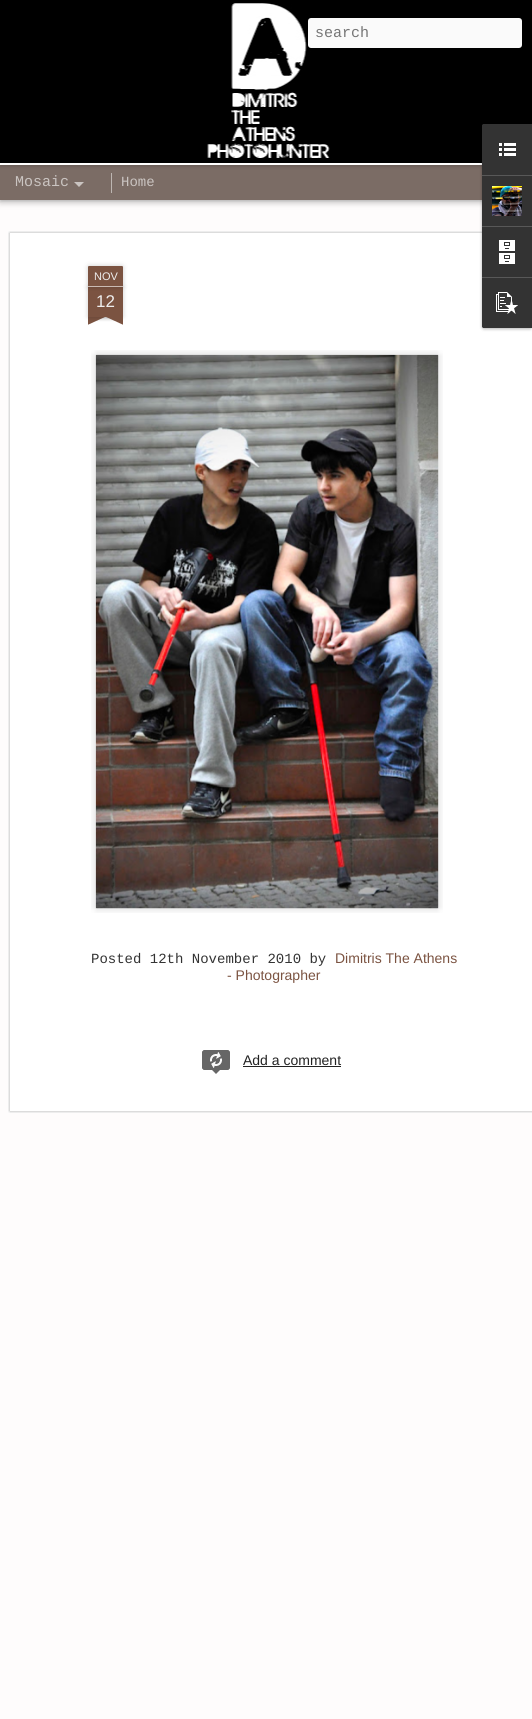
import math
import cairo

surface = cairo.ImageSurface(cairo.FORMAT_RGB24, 532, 1719)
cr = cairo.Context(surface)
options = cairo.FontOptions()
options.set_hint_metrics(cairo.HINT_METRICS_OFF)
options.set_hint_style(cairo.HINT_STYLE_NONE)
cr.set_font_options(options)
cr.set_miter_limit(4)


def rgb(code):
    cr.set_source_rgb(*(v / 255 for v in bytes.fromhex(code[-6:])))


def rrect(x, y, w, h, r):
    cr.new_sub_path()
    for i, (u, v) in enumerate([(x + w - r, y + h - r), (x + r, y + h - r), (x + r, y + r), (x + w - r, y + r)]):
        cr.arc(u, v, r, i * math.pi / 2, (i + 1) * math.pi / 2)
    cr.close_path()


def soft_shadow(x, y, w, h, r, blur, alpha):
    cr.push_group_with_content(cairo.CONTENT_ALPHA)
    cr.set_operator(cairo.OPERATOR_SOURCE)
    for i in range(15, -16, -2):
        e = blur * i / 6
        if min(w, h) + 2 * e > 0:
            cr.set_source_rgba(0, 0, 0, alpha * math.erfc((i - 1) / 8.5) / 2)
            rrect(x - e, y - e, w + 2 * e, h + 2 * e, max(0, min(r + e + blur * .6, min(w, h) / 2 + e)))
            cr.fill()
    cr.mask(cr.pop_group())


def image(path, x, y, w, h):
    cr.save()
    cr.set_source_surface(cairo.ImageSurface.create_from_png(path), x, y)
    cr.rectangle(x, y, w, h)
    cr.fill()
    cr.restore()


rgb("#fefcfc")
cr.paint()
rgb("#000000")
soft_shadow(0, 165, 532, 35, 0, 4, 0.5)
rgb("#7b6c65")
cr.rectangle(0, 165, 482, 35)
cr.fill()
rgb("#bdb6b2")
cr.rectangle(111, 173, 1, 20)
cr.fill()
rgb("#000000")
soft_shadow(0, 0, 532, 165, 0, 2.5, 0.3)
rgb("#000000")
cr.rectangle(0, 0, 532, 3)
cr.fill()
image("img/1.png", 0, 3, 532, 162)
rgb("#fafafa")
rrect(308, 18, 214, 30, 3)
cr.fill()
rgb("#cac4c1")
cr.new_path()
cr.move_to(74, 182)
cr.line_to(84, 182)
cr.line_to(79, 187)
cr.close_path()
cr.fill()
rgb("#ffffff")
cr.rectangle(8, 231, 524, 882)
cr.fill()
image("img/6.png", 8, 231, 524, 882)
rgb("#000000")
soft_shadow(482, 125, 50, 204, 2, 1.5, 0.3)
rgb("#333333")
cr.new_path()
cr.move_to(484, 124)
cr.line_to(532, 124)
cr.line_to(532, 328)
cr.line_to(484, 328)
cr.curve_to(483, 328, 482, 327, 482, 326)
cr.line_to(482, 126)
cr.curve_to(482, 125, 483, 124, 484, 124)
cr.close_path()
cr.fill()
cr.new_path()
cr.move_to(484, 124)
cr.line_to(532, 124)
cr.line_to(532, 175)
cr.line_to(482, 175)
cr.line_to(482, 126)
cr.curve_to(482, 125, 483, 124, 484, 124)
cr.close_path()
cr.fill()
image("img/2.png", 499, 143, 17, 13)
rgb("#585858")
cr.rectangle(482, 175, 50, 1)
cr.fill()
image("img/3.png", 492, 186, 30, 30)
cr.rectangle(482, 226, 50, 1)
cr.fill()
image("img/4.png", 499, 240, 16, 24)
rgb("#333333")
cr.new_path()
cr.move_to(482, 277)
cr.line_to(532, 277)
cr.line_to(532, 328)
cr.line_to(484, 328)
cr.curve_to(483, 328, 482, 327, 482, 326)
cr.close_path()
cr.fill()
rgb("#585858")
cr.rectangle(482, 277, 50, 1)
cr.fill()
image("img/5.png", 496, 292, 22, 22)
rgb("#000000")
soft_shadow(88, 287, 35, 30, 0, 2.5, 0.2)
rgb("#7b5341")
cr.rectangle(88, 287, 35, 30)
cr.fill()
rgb("#000000")
soft_shadow(88, 266, 35, 21, 1, 2.5, 0.2)
rgb("#7b5341")
cr.new_path()
cr.move_to(89, 266)
cr.line_to(122, 266)
cr.curve_to(122.5, 266, 123, 266.5, 123, 267)
cr.line_to(123, 287)
cr.line_to(88, 287)
cr.line_to(88, 267)
cr.curve_to(88, 266.5, 88.5, 266, 89, 266)
cr.close_path()
cr.fill()
rgb("#cabab3")
cr.rectangle(88, 286, 35, 1)
cr.fill()
cr.save()
cr.rectangle(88, 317, 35, 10)
cr.clip()
rgb("#000000")
soft_shadow(79, 307, 50, 10, 0, 2.5, 0.2)
cr.restore()
cr.save()
cr.rectangle(88, 317, 35, 10)
cr.clip()
rgb("#7b5341")
cr.new_path()
cr.move_to(79, 318)
cr.line_to(125, 297)
cr.line_to(129, 306)
cr.line_to(83, 327)
cr.close_path()
cr.fill()
cr.restore()
cr.save()
cr.rectangle(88, 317, 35, 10)
cr.clip()
rgb("#000000")
soft_shadow(82, 307, 50, 10, 0, 2.5, 0.2)
cr.restore()
cr.save()
cr.rectangle(88, 317, 35, 10)
cr.clip()
rgb("#7b5341")
cr.new_path()
cr.move_to(86, 297)
cr.line_to(132, 318)
cr.line_to(128, 327)
cr.line_to(82, 306)
cr.close_path()
cr.fill()
cr.restore()
image("img/7.png", 91, 350, 352, 563)
image("img/8.png", 95, 354, 344, 555)
rgb("#666666")
rrect(202, 1050, 28, 20, 3)
cr.fill()
image("img/9.png", 210, 1052, 12, 16)
rrect(202.5, 1050.5, 27, 19, 2.5)
cr.set_line_width(1)
cr.stroke()
cr.new_path()
cr.move_to(211, 1069)
cr.line_to(221, 1069)
cr.line_to(216, 1074)
cr.close_path()
cr.fill()
rgb("#222222")
cr.rectangle(243, 1066, 98, 1)
cr.fill()
cr.select_font_face("Liberation Mono")
cr.set_font_size(15)
rgb("#757575")
cr.move_to(315, 37)
cr.show_text("search")
rgb("#cac4c1")
cr.move_to(15, 186)
cr.show_text("Mosaic")
cr.set_font_size(14)
cr.move_to(121, 186)
cr.show_text("Home")
cr.select_font_face("Liberation Sans")
cr.set_font_size(11)
rgb("#eeeeee")
cr.move_to(94, 280)
cr.show_text("NOV")
cr.set_font_size(17)
cr.move_to(96, 307)
cr.show_text("12")
cr.select_font_face("Liberation Mono")
cr.set_font_size(14)
rgb("#333333")
cr.move_to(91, 963)
cr.show_text("Posted 12th November 2010 by")
cr.select_font_face("Liberation Sans")
rgb("#7b5341")
cr.move_to(335, 963)
cr.show_text("Dimitris The Athens")
cr.move_to(227, 980)
cr.show_text("- Photographer")
rgb("#222222")
cr.move_to(243, 1065)
cr.show_text("Add a comment")
surface.write_to_png("page.png")
